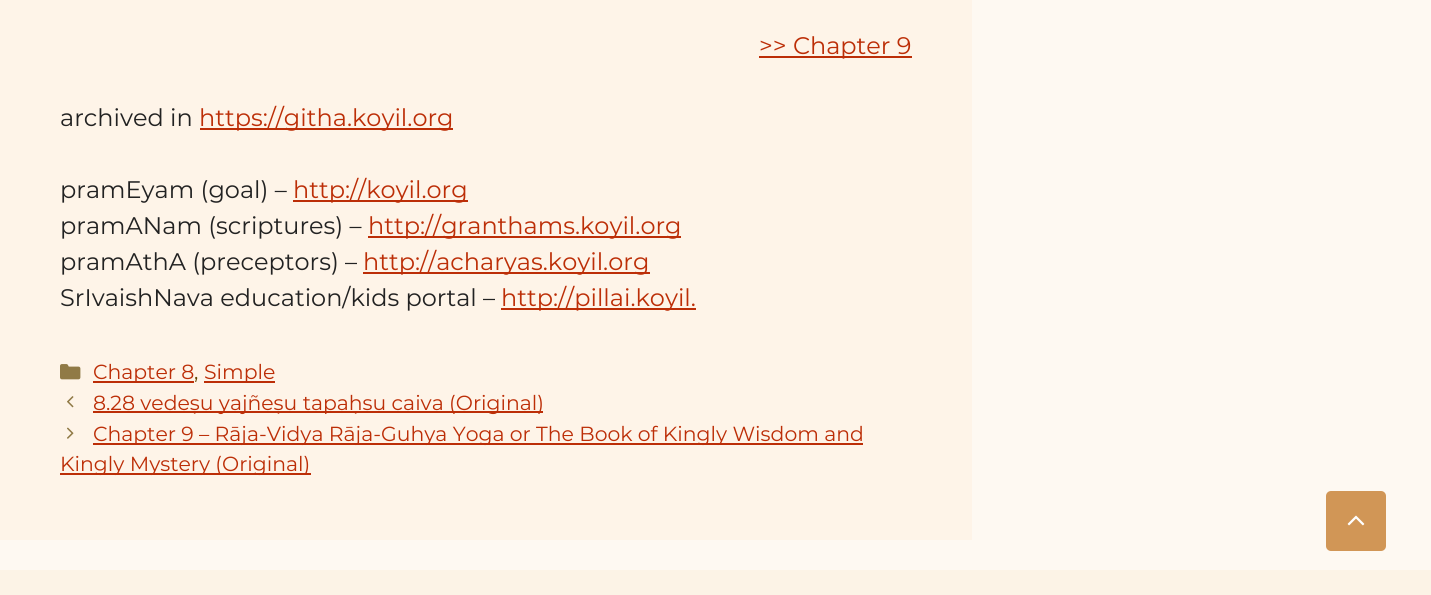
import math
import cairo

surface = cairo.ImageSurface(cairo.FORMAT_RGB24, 1431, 595)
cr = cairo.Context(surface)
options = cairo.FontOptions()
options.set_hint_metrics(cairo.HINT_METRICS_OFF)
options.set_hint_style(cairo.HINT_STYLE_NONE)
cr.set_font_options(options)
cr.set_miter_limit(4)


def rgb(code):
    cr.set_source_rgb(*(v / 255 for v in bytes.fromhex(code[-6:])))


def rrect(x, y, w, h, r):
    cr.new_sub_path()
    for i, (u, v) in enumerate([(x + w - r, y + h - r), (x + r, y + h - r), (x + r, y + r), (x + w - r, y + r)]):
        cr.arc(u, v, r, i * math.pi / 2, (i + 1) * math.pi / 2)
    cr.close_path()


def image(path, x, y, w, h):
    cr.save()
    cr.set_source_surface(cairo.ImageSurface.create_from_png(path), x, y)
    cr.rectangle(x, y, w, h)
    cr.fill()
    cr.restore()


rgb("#fef9f2")
cr.paint()
for x, y, w, h, color in [
    (0, 0, 972, 540, "#fef4e8"),
    (759, 56, 153, 2, "#bc2e07"),
    (200, 128, 253, 2, "#bc2e07"),
    (293, 200, 175, 2, "#bc2e07"),
    (368, 236, 313, 2, "#bc2e07"),
    (363, 272, 287, 2, "#bc2e07"),
    (501, 308, 195, 2, "#bc2e07"),
]:
    rgb(color)
    cr.rectangle(x, y, w, h)
    cr.fill()
image("img/1.png", 60, 364, 21, 16)
cr.rectangle(93, 381, 101, 2)
cr.fill()
cr.rectangle(204, 381, 71, 2)
cr.fill()
image("img/2.png", 67, 396, 7, 12)
cr.rectangle(93, 411, 450, 2)
cr.fill()
image("img/3.png", 67, 427, 7, 12)
cr.rectangle(93, 443, 770, 2)
cr.fill()
cr.rectangle(60, 473, 251, 2)
cr.fill()
rgb("#d19656")
rrect(1326, 491, 60, 60, 5)
cr.fill()
image("img/4.png", 1347, 515, 18, 11)
rgb("#fcf3e6")
cr.rectangle(0, 570, 1431, 25)
cr.fill()
cr.select_font_face("Montserrat")
cr.set_font_size(24)
rgb("#bc2e07")
cr.move_to(759, 54)
cr.show_text(">> Chapter 9")
rgb("#222222")
cr.move_to(60, 126)
cr.show_text("archived in")
rgb("#bc2e07")
cr.move_to(199, 126)
cr.show_text("https://githa.koyil.org")
rgb("#222222")
cr.move_to(60, 198)
cr.show_text("pramEyam (goal) –")
rgb("#bc2e07")
cr.move_to(293, 198)
cr.show_text("http://koyil.org")
rgb("#222222")
cr.move_to(60, 234)
cr.show_text("pramANam (scriptures) –")
rgb("#bc2e07")
cr.move_to(368, 234)
cr.show_text("http://granthams.koyil.org")
rgb("#222222")
cr.move_to(60, 270)
cr.show_text("pramAthA (preceptors) –")
rgb("#bc2e07")
cr.move_to(363, 270)
cr.show_text("http://acharyas.koyil.org")
rgb("#222222")
cr.move_to(60, 306)
cr.show_text("SrIvaishNava education/kids portal –")
rgb("#bc2e07")
cr.move_to(501, 306)
cr.show_text("http://pillai.koyil.")
cr.set_font_size(20.4)
cr.move_to(93, 379)
cr.show_text("Chapter 8")
rgb("#604500")
cr.move_to(194, 379)
cr.show_text(",")
rgb("#bc2e07")
for x, y, s in [
    (204, 379, "Simple"),
    (93, 410, "8.28 vedeṣu yajñeṣu tapaḥsu caiva (Original)"),
    (93, 441, "Chapter 9 – Rāja-Vidya Rāja-Guhya Yoga or The Book of Kingly Wisdom and"),
    (60, 471, "Kingly Mystery (Original)"),
]:
    cr.move_to(x, y)
    cr.show_text(s)
surface.write_to_png("page.png")
